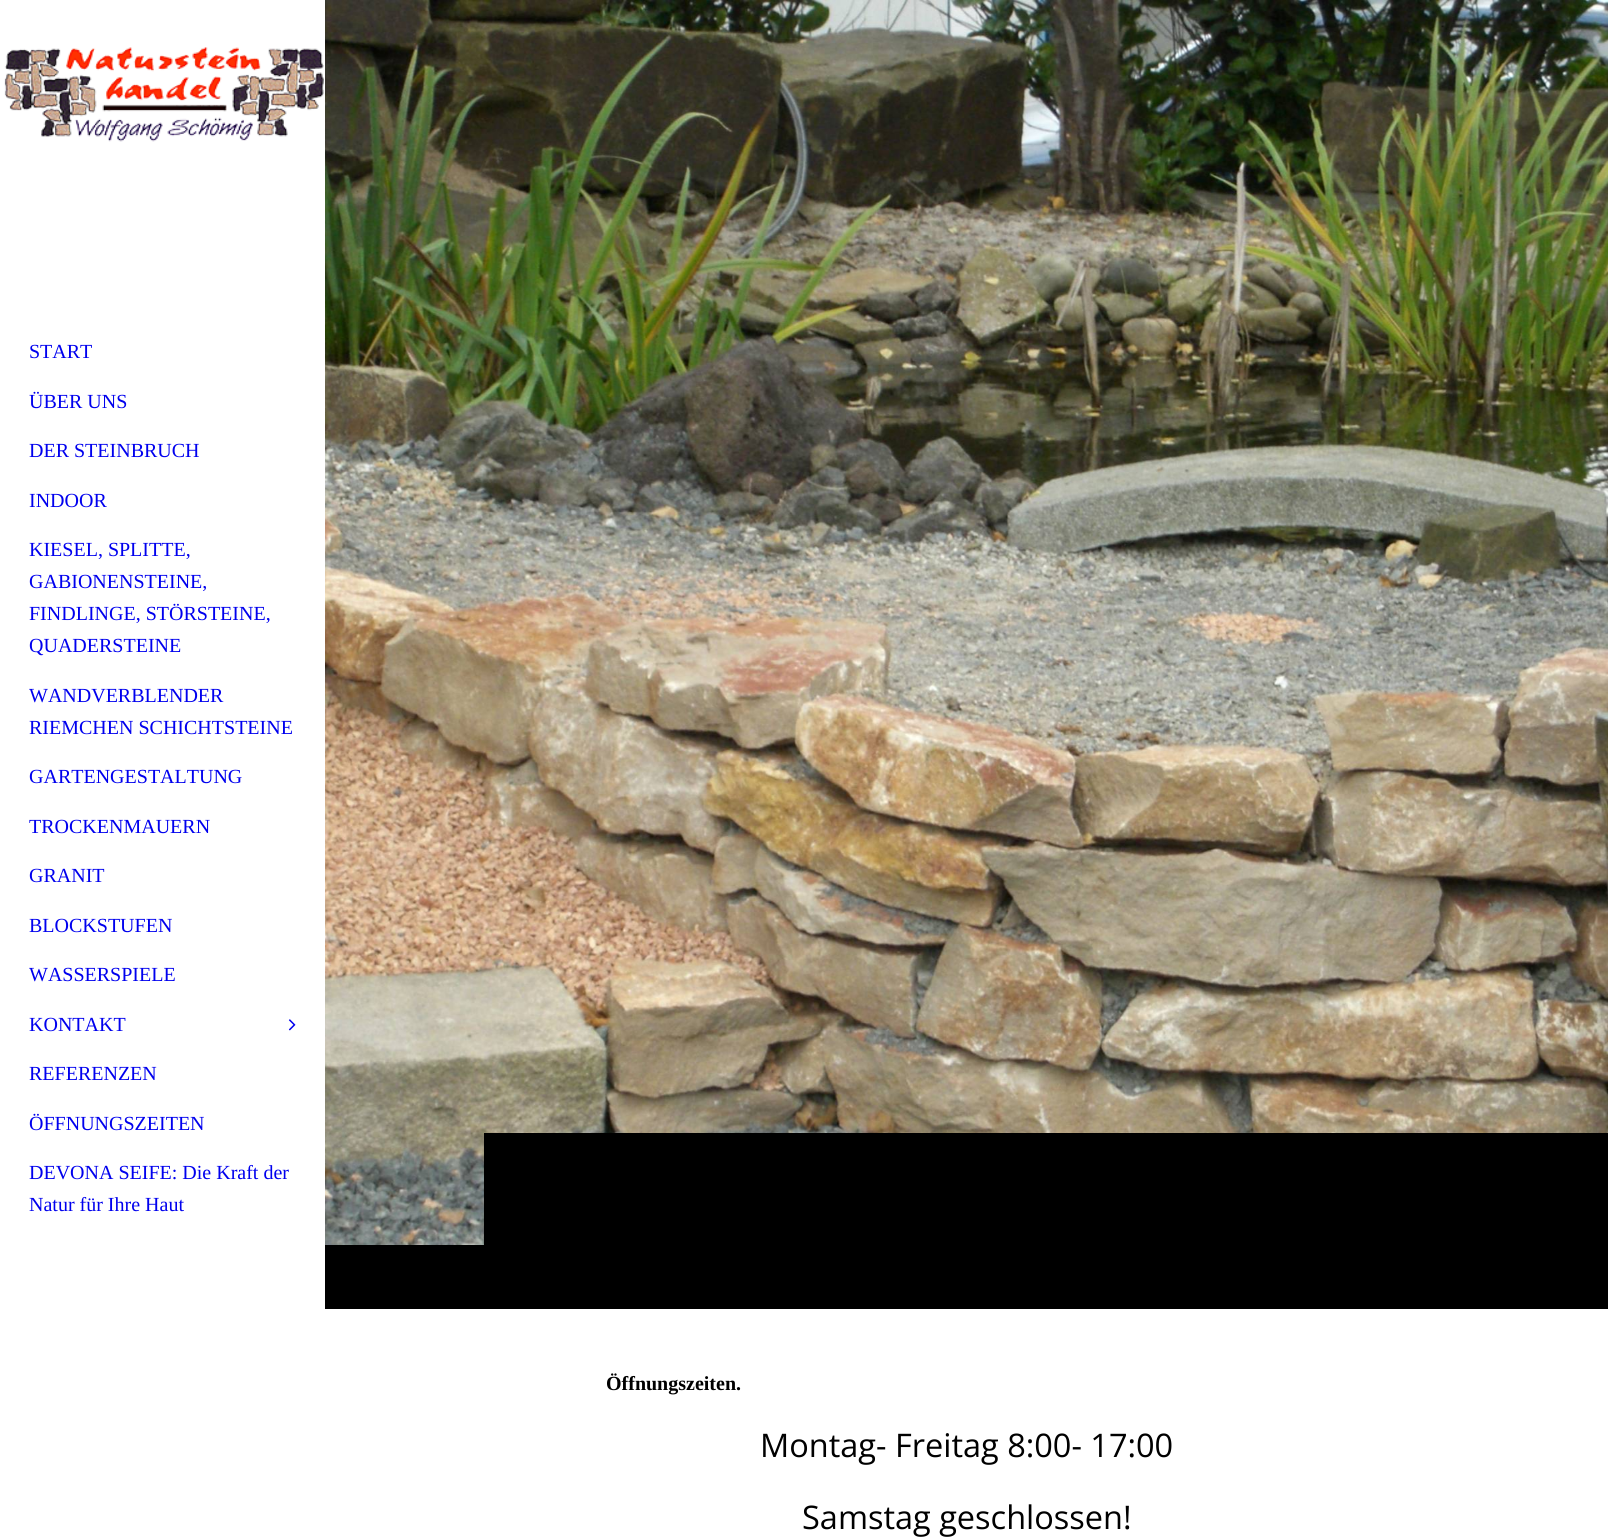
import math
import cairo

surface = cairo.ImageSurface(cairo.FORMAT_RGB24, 1608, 1538)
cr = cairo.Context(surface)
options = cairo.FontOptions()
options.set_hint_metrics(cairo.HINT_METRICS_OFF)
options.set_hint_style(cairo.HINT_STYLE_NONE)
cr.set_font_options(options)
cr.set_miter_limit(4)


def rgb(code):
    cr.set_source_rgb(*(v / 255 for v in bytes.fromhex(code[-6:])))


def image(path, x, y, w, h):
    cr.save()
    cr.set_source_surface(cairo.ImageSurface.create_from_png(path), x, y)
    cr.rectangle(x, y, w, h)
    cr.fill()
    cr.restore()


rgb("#ffffff")
cr.paint()
image("img/1.png", 4, 47, 320, 95)
image("img/2.png", 288, 1019, 8, 12)
image("img/3.png", 325, 0, 1283, 1245)
rgb("#000000")
cr.rectangle(325, 1245, 159, 64)
cr.fill()
cr.rectangle(484, 1133, 1124, 176)
cr.fill()
cr.select_font_face("Liberation Serif")
cr.set_font_size(20)
rgb("#0000ee")
for x, y, s in [
    (29, 358, "START"),
    (29, 408, "ÜBER UNS"),
    (29, 457, "DER STEINBRUCH"),
    (29, 507, "INDOOR"),
    (29, 556, "KIESEL, SPLITTE,"),
    (29, 588, "GABIONENSTEINE,"),
    (29, 620, "FINDLINGE, STÖRSTEINE,"),
    (29, 652, "QUADERSTEINE"),
    (29, 702, "WANDVERBLENDER"),
    (29, 734, "RIEMCHEN SCHICHTSTEINE"),
    (29, 783, "GARTENGESTALTUNG"),
    (29, 833, "TROCKENMAUERN"),
    (29, 882, "GRANIT"),
    (29, 932, "BLOCKSTUFEN"),
    (29, 981, "WASSERSPIELE"),
    (29, 1031, "KONTAKT"),
    (29, 1080, "REFERENZEN"),
    (29, 1130, "ÖFFNUNGSZEITEN"),
    (29, 1179, "DEVONA SEIFE: Die Kraft der"),
    (29, 1211, "Natur für Ihre Haut"),
]:
    cr.move_to(x, y)
    cr.show_text(s)
cr.select_font_face("Liberation Serif", cairo.FONT_SLANT_NORMAL, cairo.FONT_WEIGHT_BOLD)
rgb("#000000")
cr.move_to(606, 1390)
cr.show_text("Öffnungszeiten.")
cr.select_font_face("Open Sans")
cr.set_font_size(32.5)
cr.move_to(760, 1457)
cr.show_text("Montag- Freitag 8:00- 17:00")
cr.move_to(802, 1529)
cr.show_text("Samstag geschlossen!")
surface.write_to_png("page.png")
